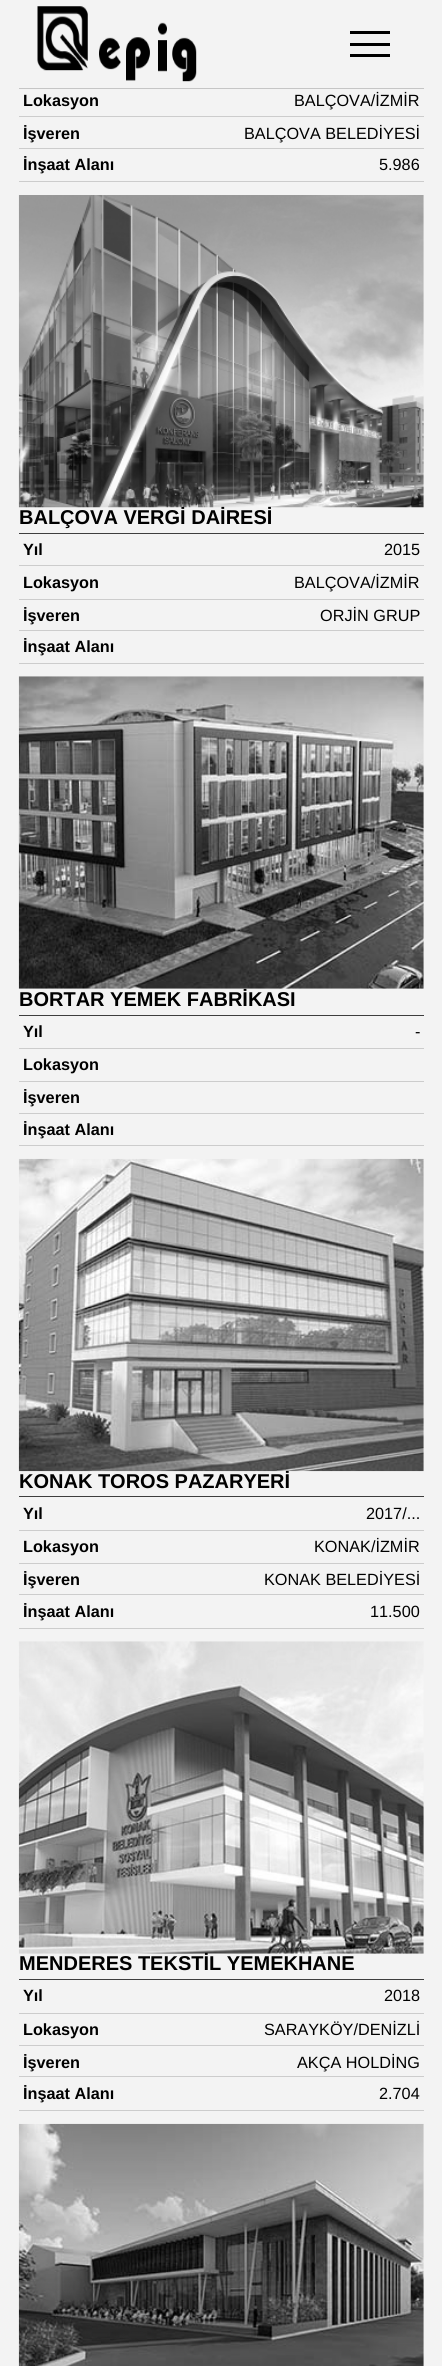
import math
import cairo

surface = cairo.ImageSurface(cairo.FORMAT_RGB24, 442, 2366)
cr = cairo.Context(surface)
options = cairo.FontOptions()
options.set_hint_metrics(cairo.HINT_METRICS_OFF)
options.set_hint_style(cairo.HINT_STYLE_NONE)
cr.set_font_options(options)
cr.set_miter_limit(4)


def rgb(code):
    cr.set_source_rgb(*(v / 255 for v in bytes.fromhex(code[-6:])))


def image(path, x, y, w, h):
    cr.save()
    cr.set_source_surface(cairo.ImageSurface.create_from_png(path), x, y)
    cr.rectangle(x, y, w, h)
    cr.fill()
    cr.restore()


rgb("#f3f3f3")
cr.paint()
rgb("#c5c5c5")
cr.rectangle(19, 88, 405, 1)
cr.fill()
image("img/1.png", 37, 6, 160, 76)
for x, y, w, h, color in [
    (350, 31, 40, 3, "#000000"),
    (350, 43, 40, 3, "#000000"),
    (350, 54, 40, 3, "#000000"),
    (19, 116, 405, 1, "#cccccc"),
    (19, 148, 405, 1, "#cccccc"),
    (19, 181, 405, 1, "#cccccc"),
]:
    rgb(color)
    cr.rectangle(x, y, w, h)
    cr.fill()
image("img/2.png", 18, 195, 406, 313)
for x, y, w, h, color in [
    (19, 533, 405, 1, "#3d3d3d"),
    (19, 565, 405, 1, "#cccccc"),
    (19, 599, 405, 1, "#cccccc"),
    (19, 630, 405, 1, "#cccccc"),
    (19, 663, 405, 1, "#cccccc"),
]:
    rgb(color)
    cr.rectangle(x, y, w, h)
    cr.fill()
image("img/3.png", 18, 676, 406, 313)
for x, y, w, h, color in [
    (19, 1015, 405, 1, "#3d3d3d"),
    (19, 1048, 405, 1, "#cccccc"),
    (19, 1081, 405, 1, "#cccccc"),
    (19, 1113, 405, 1, "#cccccc"),
    (19, 1145, 405, 1, "#cccccc"),
]:
    rgb(color)
    cr.rectangle(x, y, w, h)
    cr.fill()
image("img/4.png", 18, 1158, 406, 314)
for x, y, w, h, color in [
    (19, 1496, 405, 1, "#3d3d3d"),
    (19, 1530, 405, 1, "#cccccc"),
    (19, 1563, 405, 1, "#cccccc"),
    (19, 1594, 405, 1, "#cccccc"),
    (19, 1628, 405, 1, "#cccccc"),
]:
    rgb(color)
    cr.rectangle(x, y, w, h)
    cr.fill()
image("img/5.png", 18, 1641, 406, 313)
for x, y, w, h, color in [
    (19, 1979, 405, 1, "#3d3d3d"),
    (19, 2013, 405, 1, "#cccccc"),
    (19, 2045, 405, 1, "#cccccc"),
    (19, 2076, 405, 1, "#cccccc"),
    (19, 2110, 405, 1, "#cccccc"),
]:
    rgb(color)
    cr.rectangle(x, y, w, h)
    cr.fill()
image("img/6.png", 18, 2123, 406, 243)
cr.select_font_face("Liberation Sans", cairo.FONT_SLANT_NORMAL, cairo.FONT_WEIGHT_BOLD)
cr.set_font_size(16.25)
rgb("#000000")
cr.move_to(23, 106)
cr.show_text("Lokasyon")
cr.select_font_face("Liberation Sans")
cr.move_to(294, 106)
cr.show_text("BALÇOVA/İZMİR")
cr.select_font_face("Liberation Sans", cairo.FONT_SLANT_NORMAL, cairo.FONT_WEIGHT_BOLD)
cr.move_to(23, 139)
cr.show_text("İşveren")
cr.select_font_face("Liberation Sans")
cr.move_to(244, 139)
cr.show_text("BALÇOVA BELEDİYESİ")
cr.select_font_face("Liberation Sans", cairo.FONT_SLANT_NORMAL, cairo.FONT_WEIGHT_BOLD)
cr.move_to(23, 170)
cr.show_text("İnşaat Alanı")
cr.select_font_face("Liberation Sans")
cr.move_to(379, 170)
cr.show_text("5.986")
cr.select_font_face("Liberation Sans", cairo.FONT_SLANT_NORMAL, cairo.FONT_WEIGHT_BOLD)
cr.set_font_size(20)
cr.move_to(19, 524)
cr.show_text("BALÇOVA VERGİ DAİRESİ")
cr.set_font_size(16.25)
cr.move_to(23, 555)
cr.show_text("Yıl")
cr.select_font_face("Liberation Sans")
cr.move_to(384, 555)
cr.show_text("2015")
cr.select_font_face("Liberation Sans", cairo.FONT_SLANT_NORMAL, cairo.FONT_WEIGHT_BOLD)
cr.move_to(23, 588)
cr.show_text("Lokasyon")
cr.select_font_face("Liberation Sans")
cr.move_to(294, 588)
cr.show_text("BALÇOVA/İZMİR")
cr.select_font_face("Liberation Sans", cairo.FONT_SLANT_NORMAL, cairo.FONT_WEIGHT_BOLD)
cr.move_to(23, 621)
cr.show_text("İşveren")
cr.select_font_face("Liberation Sans")
cr.move_to(320, 621)
cr.show_text("ORJİN GRUP")
cr.select_font_face("Liberation Sans", cairo.FONT_SLANT_NORMAL, cairo.FONT_WEIGHT_BOLD)
cr.move_to(23, 652)
cr.show_text("İnşaat Alanı")
cr.set_font_size(20)
cr.move_to(19, 1006)
cr.show_text("BORTAR YEMEK FABRİKASI")
cr.set_font_size(16.25)
cr.move_to(23, 1037)
cr.show_text("Yıl")
cr.select_font_face("Liberation Sans")
cr.move_to(415, 1037)
cr.show_text("-")
cr.select_font_face("Liberation Sans", cairo.FONT_SLANT_NORMAL, cairo.FONT_WEIGHT_BOLD)
for x, y, s in [
    (23, 1070, "Lokasyon"),
    (23, 1103, "İşveren"),
    (23, 1135, "İnşaat Alanı"),
]:
    cr.move_to(x, y)
    cr.show_text(s)
cr.set_font_size(20)
cr.move_to(19, 1488)
cr.show_text("KONAK TOROS PAZARYERİ")
cr.set_font_size(16.25)
cr.move_to(23, 1519)
cr.show_text("Yıl")
cr.select_font_face("Liberation Sans")
cr.move_to(366, 1519)
cr.show_text("2017/...")
cr.select_font_face("Liberation Sans", cairo.FONT_SLANT_NORMAL, cairo.FONT_WEIGHT_BOLD)
cr.move_to(23, 1552)
cr.show_text("Lokasyon")
cr.select_font_face("Liberation Sans")
cr.move_to(314, 1552)
cr.show_text("KONAK/İZMİR")
cr.select_font_face("Liberation Sans", cairo.FONT_SLANT_NORMAL, cairo.FONT_WEIGHT_BOLD)
cr.move_to(23, 1585)
cr.show_text("İşveren")
cr.select_font_face("Liberation Sans")
cr.move_to(264, 1585)
cr.show_text("KONAK BELEDİYESİ")
cr.select_font_face("Liberation Sans", cairo.FONT_SLANT_NORMAL, cairo.FONT_WEIGHT_BOLD)
cr.move_to(23, 1617)
cr.show_text("İnşaat Alanı")
cr.select_font_face("Liberation Sans")
cr.move_to(370, 1617)
cr.show_text("11.500")
cr.select_font_face("Liberation Sans", cairo.FONT_SLANT_NORMAL, cairo.FONT_WEIGHT_BOLD)
cr.set_font_size(20)
cr.move_to(19, 1970)
cr.show_text("MENDERES TEKSTİL YEMEKHANE")
cr.set_font_size(16.25)
cr.move_to(23, 2001)
cr.show_text("Yıl")
cr.select_font_face("Liberation Sans")
cr.move_to(384, 2001)
cr.show_text("2018")
cr.select_font_face("Liberation Sans", cairo.FONT_SLANT_NORMAL, cairo.FONT_WEIGHT_BOLD)
cr.move_to(23, 2035)
cr.show_text("Lokasyon")
cr.select_font_face("Liberation Sans")
cr.move_to(264, 2035)
cr.show_text("SARAYKÖY/DENİZLİ")
cr.select_font_face("Liberation Sans", cairo.FONT_SLANT_NORMAL, cairo.FONT_WEIGHT_BOLD)
cr.move_to(23, 2068)
cr.show_text("İşveren")
cr.select_font_face("Liberation Sans")
cr.move_to(297, 2068)
cr.show_text("AKÇA HOLDİNG")
cr.select_font_face("Liberation Sans", cairo.FONT_SLANT_NORMAL, cairo.FONT_WEIGHT_BOLD)
cr.move_to(23, 2099)
cr.show_text("İnşaat Alanı")
cr.select_font_face("Liberation Sans")
cr.move_to(379, 2099)
cr.show_text("2.704")
surface.write_to_png("page.png")
